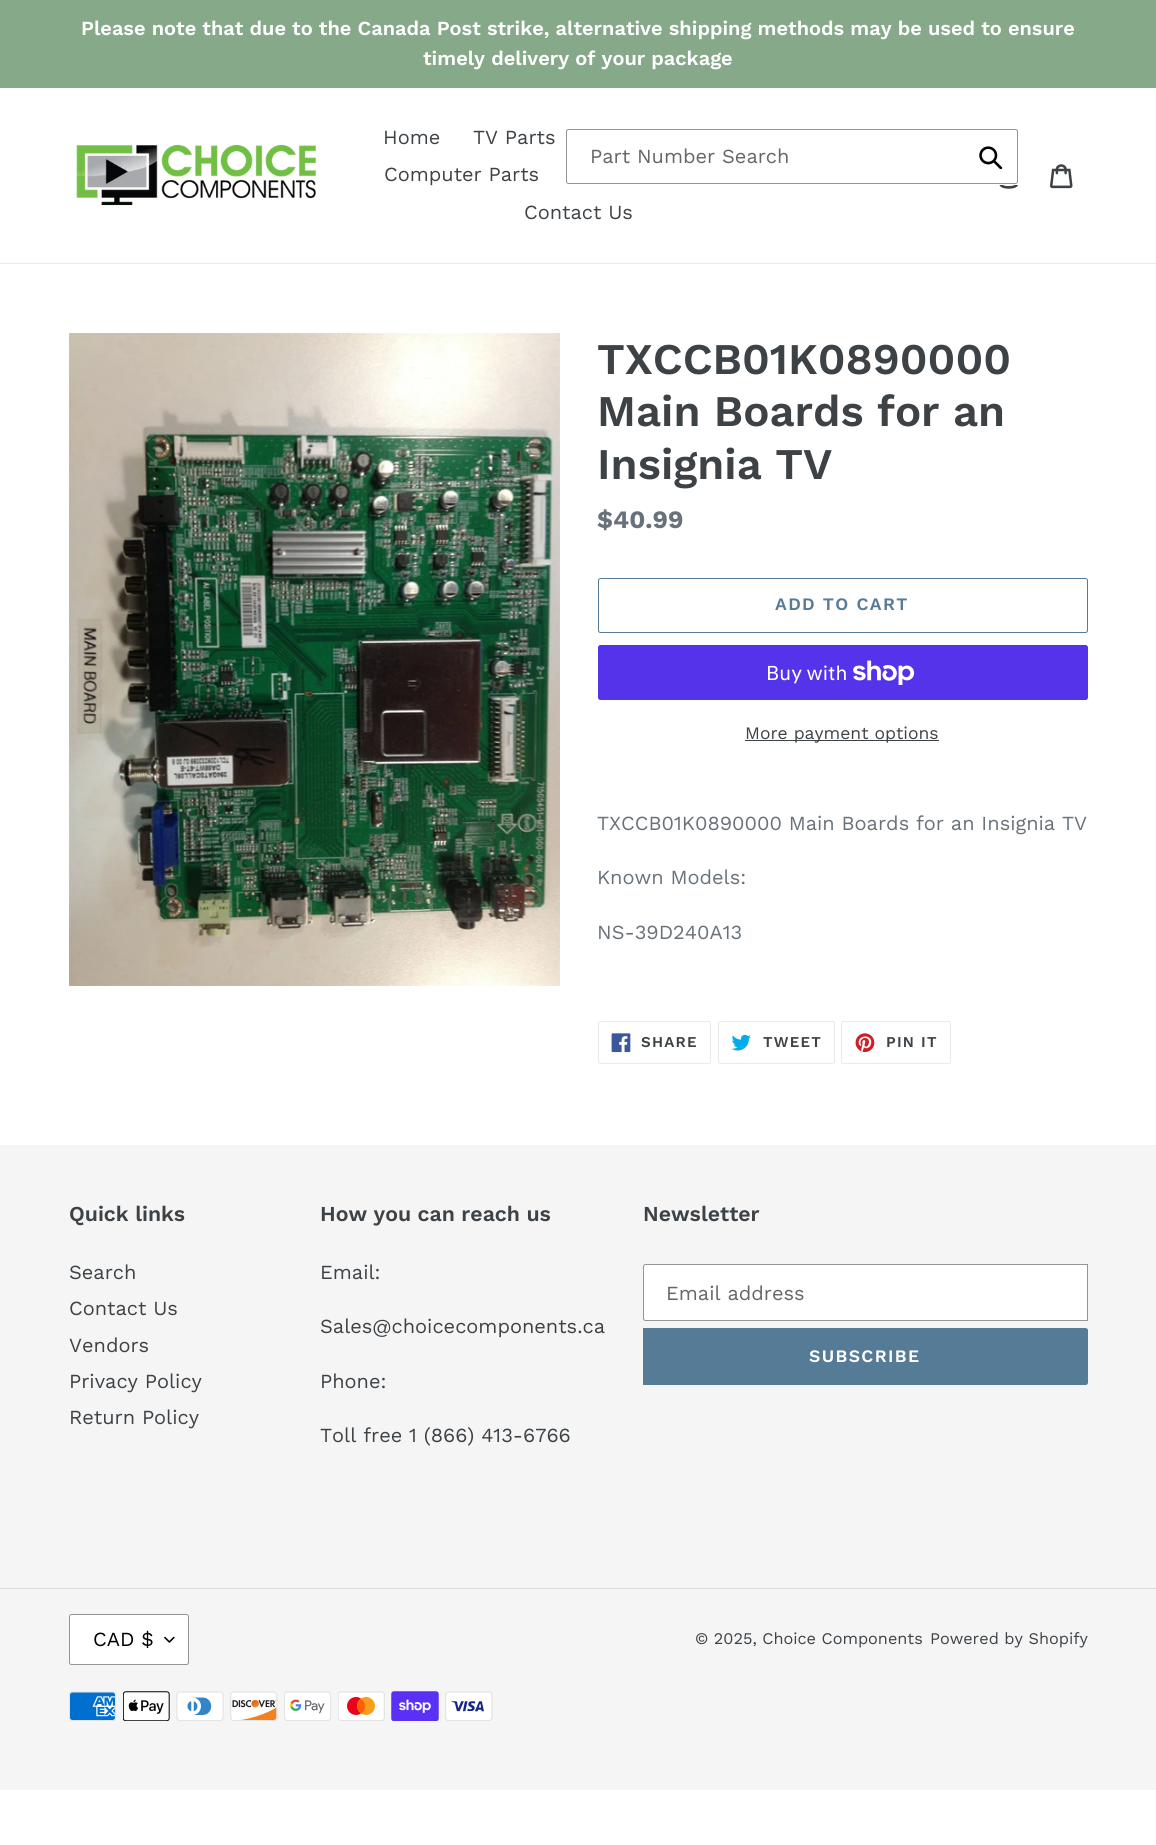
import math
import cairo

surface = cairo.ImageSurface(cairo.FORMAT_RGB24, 1156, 1845)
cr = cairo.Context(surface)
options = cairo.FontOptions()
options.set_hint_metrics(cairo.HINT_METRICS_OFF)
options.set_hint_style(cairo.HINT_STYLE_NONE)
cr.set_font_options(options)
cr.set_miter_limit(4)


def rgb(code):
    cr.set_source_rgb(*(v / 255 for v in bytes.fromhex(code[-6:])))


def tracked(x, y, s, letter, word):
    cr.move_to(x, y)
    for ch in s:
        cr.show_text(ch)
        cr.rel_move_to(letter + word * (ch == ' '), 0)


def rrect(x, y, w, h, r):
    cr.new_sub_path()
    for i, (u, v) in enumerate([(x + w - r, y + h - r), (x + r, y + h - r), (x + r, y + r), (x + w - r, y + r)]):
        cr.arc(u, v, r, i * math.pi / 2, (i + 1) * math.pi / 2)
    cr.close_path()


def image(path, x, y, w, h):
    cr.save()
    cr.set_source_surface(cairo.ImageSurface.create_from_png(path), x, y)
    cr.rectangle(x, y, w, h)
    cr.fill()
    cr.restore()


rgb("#ffffff")
cr.paint()
rgb("#86a989")
cr.rectangle(0, 0, 1156, 88)
cr.fill()
rgb("#e8e9eb")
cr.rectangle(0, 263, 1156, 1)
cr.fill()
image("img/1.png", 76, 144, 240, 62)
image("img/2.png", 999, 185, 19, 4)
image("img/3.png", 1050, 164, 23, 25)
rrect(566.5, 129.5, 451, 54, 2)
rgb("#949494")
cr.set_line_width(1)
cr.stroke()
image("img/4.png", 979, 146, 24, 23)
image("img/5.png", 69, 333, 491, 653)
rrect(598.5, 578.5, 489, 54, 2)
rgb("#557b97")
cr.stroke()
rgb("#5433eb")
rrect(598, 645, 490, 55, 2.5)
cr.fill()
image("img/6.png", 853, 660, 62, 25)
rgb("#3d4246")
cr.rectangle(745, 740, 194, 1)
cr.fill()
rrect(598.5, 1021.5, 112, 42, 2)
rgb("#e8e9eb")
cr.stroke()
image("img/7.png", 611, 1033, 20, 20)
rrect(718.5, 1021.5, 116, 42, 2)
cr.stroke()
image("img/8.png", 731, 1034, 20, 17)
rrect(841.5, 1021.5, 109, 42, 2)
cr.stroke()
image("img/9.png", 855, 1033, 20, 19)
rgb("#f5f5f5")
cr.rectangle(0, 1145, 1156, 645)
cr.fill()
rgb("#ffffff")
cr.new_path()
cr.move_to(645.5, 1264.5)
cr.line_to(1087.5, 1264.5)
cr.line_to(1087.5, 1320.5)
cr.line_to(645.5, 1320.5)
cr.curve_to(644.5, 1320.5, 643.5, 1319.5, 643.5, 1318.5)
cr.line_to(643.5, 1266.5)
cr.curve_to(643.5, 1265.5, 644.5, 1264.5, 645.5, 1264.5)
cr.close_path()
cr.fill_preserve()
rgb("#949494")
cr.stroke()
rgb("#557b97")
cr.new_path()
cr.move_to(643, 1328)
cr.line_to(1085.5, 1328)
cr.curve_to(1087, 1328, 1088, 1329, 1088, 1330.5)
cr.line_to(1088, 1382.5)
cr.curve_to(1088, 1384, 1087, 1385, 1085.5, 1385)
cr.line_to(643, 1385)
cr.close_path()
cr.fill()
rgb("#dcdcdc")
cr.rectangle(0, 1588, 1156, 1)
cr.fill()
rgb("#ffffff")
rrect(69, 1614, 120, 51, 2.5)
cr.fill()
image("img/10.png", 164, 1636, 11, 7)
rrect(69.5, 1614.5, 119, 50, 2)
rgb("#949494")
cr.stroke()
image("img/11.png", 69, 1691, 47, 30)
image("img/12.png", 123, 1691, 47, 30)
image("img/13.png", 176, 1691, 48, 30)
image("img/14.png", 230, 1691, 48, 30)
image("img/15.png", 284, 1691, 47, 30)
image("img/16.png", 338, 1691, 47, 30)
image("img/17.png", 391, 1691, 48, 30)
image("img/18.png", 445, 1691, 48, 30)
cr.select_font_face("Work Sans SemiBold")
cr.set_font_size(20)
rgb("#ffffff")
cr.move_to(81, 35)
cr.show_text("Please note that due to the Canada Post strike, alternative shipping methods may be used to ensure")
cr.move_to(423, 65)
cr.show_text("timely delivery of your package")
cr.select_font_face("Work Sans")
rgb("#3d4246")
for x, y, s in [
    (383, 144, "Home"),
    (473, 144, "TV Parts"),
    (384, 181, "Computer Parts"),
    (524, 219, "Contact Us"),
]:
    cr.move_to(x, y)
    cr.show_text(s)
rgb("#666666")
cr.move_to(590, 163)
cr.show_text("Part Number Search")
cr.select_font_face("Work Sans SemiBold")
cr.set_font_size(43.75)
rgb("#3d4246")
for x, y, s in [
    (597, 374, "TXCCB01K0890000"),
    (597, 426, "Main Boards for an"),
    (597, 479, "Insignia TV"),
]:
    cr.move_to(x, y)
    cr.show_text(s)
cr.select_font_face("Work Sans", cairo.FONT_SLANT_NORMAL, cairo.FONT_WEIGHT_BOLD)
cr.set_font_size(25)
rgb("#69727b")
cr.move_to(597, 528)
cr.show_text("$40.99")
cr.select_font_face("Work Sans SemiBold")
cr.set_font_size(17.5)
rgb("#557b97")
tracked(775, 610, "ADD TO CART", 1.4, 0)
cr.select_font_face("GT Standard")
cr.set_font_size(20)
rgb("#ffffff")
cr.move_to(766, 680)
cr.show_text("Buy with")
cr.select_font_face("Work Sans")
cr.set_font_size(17.5)
rgb("#3d4246")
cr.move_to(745, 739)
cr.show_text("More payment options")
cr.set_font_size(20)
rgb("#69727b")
for x, y, s in [
    (597, 830, "TXCCB01K0890000 Main Boards for an Insignia TV"),
    (597, 884, "Known Models:"),
    (597, 939, "NS-39D240A13"),
]:
    cr.move_to(x, y)
    cr.show_text(s)
cr.select_font_face("Work Sans SemiBold")
cr.set_font_size(15)
rgb("#3d4246")
for x, y, s in [
    (641, 1047, "SHARE"),
    (763, 1047, "TWEET"),
    (886, 1047, "PIN IT"),
]:
    tracked(x, y, s, 1.25, 0)
cr.set_font_size(21.25)
cr.move_to(69, 1221)
cr.show_text("Quick links")
cr.select_font_face("Work Sans")
cr.set_font_size(20)
for x, y, s in [
    (69, 1279, "Search"),
    (69, 1315, "Contact Us"),
    (69, 1352, "Vendors"),
    (69, 1388, "Privacy Policy"),
    (69, 1424, "Return Policy"),
]:
    cr.move_to(x, y)
    cr.show_text(s)
cr.select_font_face("Work Sans SemiBold")
cr.set_font_size(21.25)
cr.move_to(320, 1221)
cr.show_text("How you can reach us")
cr.select_font_face("Work Sans")
cr.set_font_size(20)
for x, y, s in [
    (320, 1279, "Email:"),
    (320, 1333, "Sales@choicecomponents.ca"),
    (320, 1388, "Phone:"),
    (320, 1442, "Toll free 1 (866) 413-6766"),
]:
    cr.move_to(x, y)
    cr.show_text(s)
cr.select_font_face("Work Sans SemiBold")
cr.set_font_size(21.25)
cr.move_to(643, 1221)
cr.show_text("Newsletter")
cr.select_font_face("Work Sans")
cr.set_font_size(20)
rgb("#666666")
cr.move_to(666, 1300)
cr.show_text("Email address")
cr.select_font_face("Work Sans SemiBold")
cr.set_font_size(17.5)
rgb("#ffffff")
tracked(809, 1362, "SUBSCRIBE", 1.4, 0)
cr.select_font_face("Work Sans")
cr.set_font_size(20)
rgb("#000000")
cr.move_to(93, 1646)
cr.show_text("CAD $")
cr.set_font_size(16.25)
rgb("#3d4246")
cr.move_to(695, 1644)
cr.show_text("© 2025, Choice Components")
cr.move_to(930, 1644)
cr.show_text("Powered by Shopify")
surface.write_to_png("page.png")
